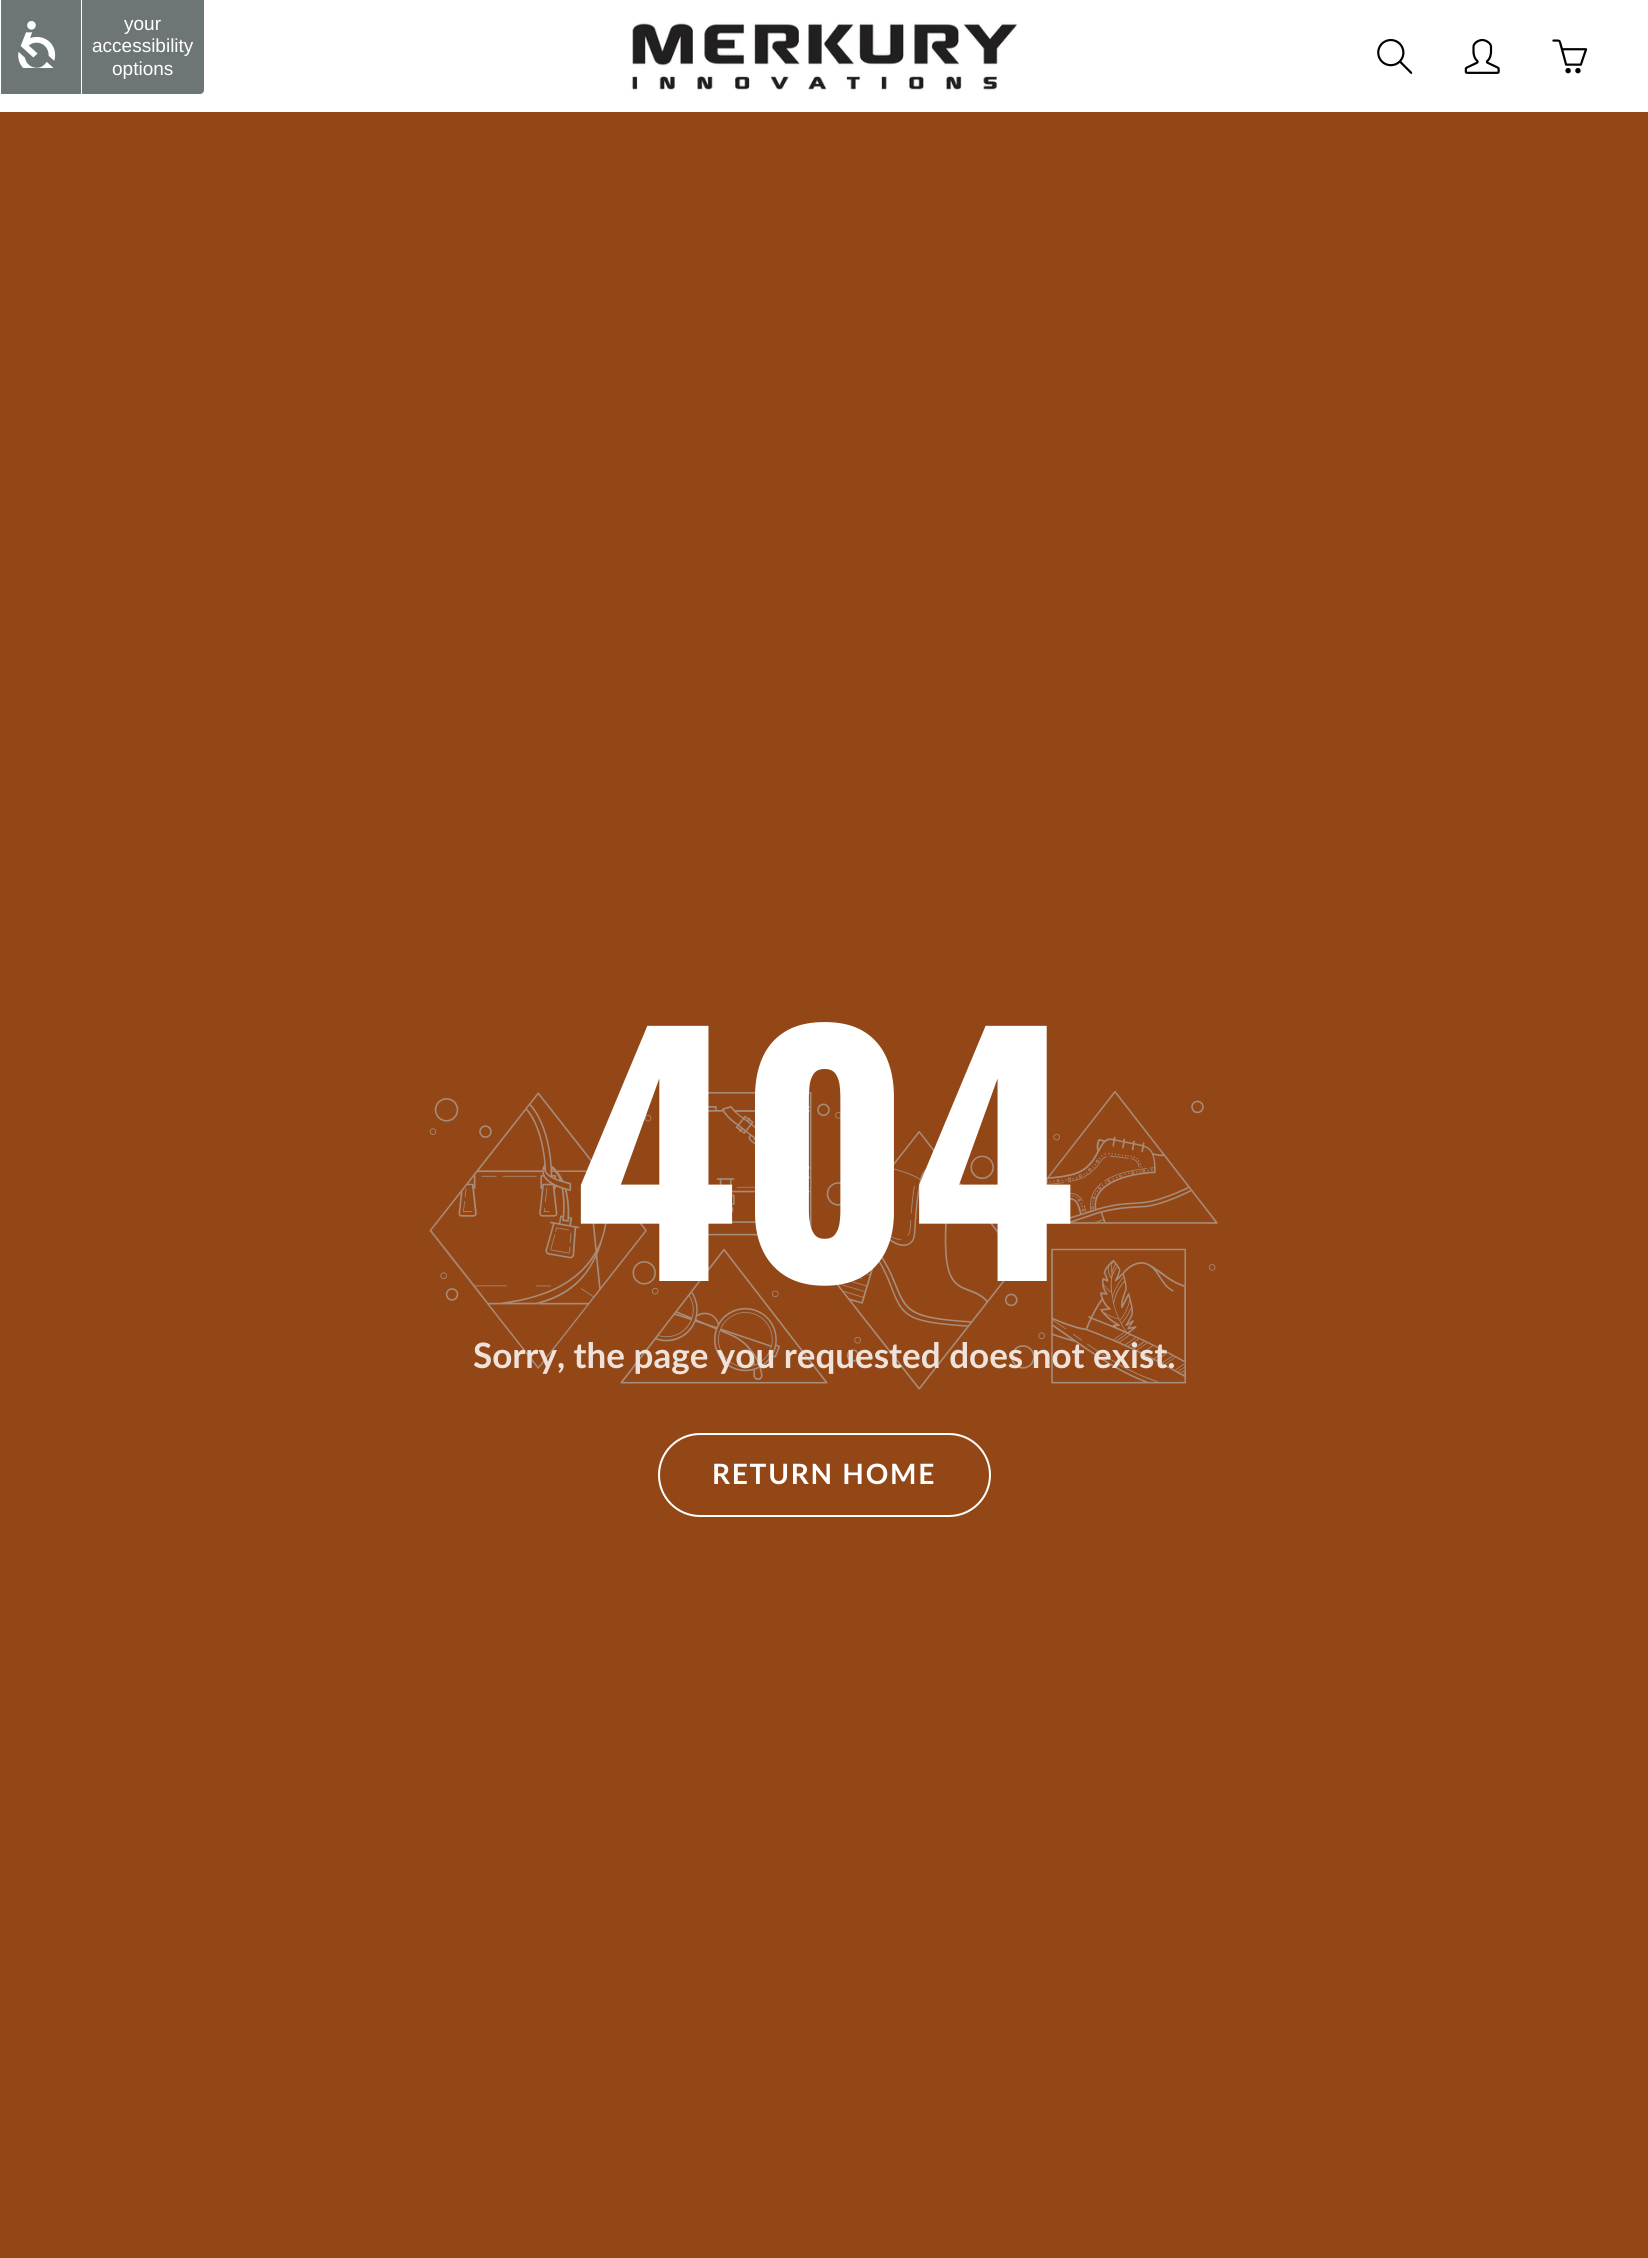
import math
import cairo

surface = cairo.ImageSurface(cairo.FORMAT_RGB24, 1648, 2258)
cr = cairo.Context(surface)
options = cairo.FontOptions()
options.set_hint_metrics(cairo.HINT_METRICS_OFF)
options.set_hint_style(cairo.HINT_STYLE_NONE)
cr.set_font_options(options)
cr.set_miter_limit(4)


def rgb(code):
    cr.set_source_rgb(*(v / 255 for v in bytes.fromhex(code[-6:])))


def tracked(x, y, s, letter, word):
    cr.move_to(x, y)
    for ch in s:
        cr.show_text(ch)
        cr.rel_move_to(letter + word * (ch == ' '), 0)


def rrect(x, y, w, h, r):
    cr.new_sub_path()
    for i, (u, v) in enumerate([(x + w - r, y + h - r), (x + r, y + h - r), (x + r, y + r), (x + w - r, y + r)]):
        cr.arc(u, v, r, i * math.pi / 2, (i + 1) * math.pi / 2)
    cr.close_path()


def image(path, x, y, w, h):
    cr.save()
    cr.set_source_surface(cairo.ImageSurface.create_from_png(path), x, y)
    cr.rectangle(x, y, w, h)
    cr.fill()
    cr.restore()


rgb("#ffffff")
cr.paint()
rgb("#6e7577")
cr.rectangle(1, 0, 80, 94)
cr.fill()
cr.new_path()
cr.move_to(81.5, -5.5)
cr.line_to(200, -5.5)
cr.curve_to(202.5, -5.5, 204.5, -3.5, 204.5, -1)
cr.line_to(204.5, 90)
cr.curve_to(204.5, 92.5, 202.5, 94.5, 200, 94.5)
cr.line_to(81.5, 94.5)
cr.close_path()
cr.fill_preserve()
rgb("#ffffff")
cr.set_line_width(1)
cr.stroke()
image("img/1.png", 18, 21, 38, 47)
image("img/2.png", 630, 21, 387, 71)
image("img/3.png", 1377, 38, 36, 36)
image("img/4.png", 1464, 38, 36, 36)
image("img/5.png", 1552, 39, 36, 35)
rgb("#944716")
cr.rectangle(0, 112, 1648, 2146)
cr.fill()
image("img/6.png", 429, 1091, 789, 299)
rrect(659, 1434, 331, 82, 41)
rgb("#ffffff")
cr.set_line_width(2)
cr.stroke()
cr.select_font_face("Liberation Sans")
cr.set_font_size(19)
for x, y, s in [
    (124, 30, "your"),
    (92, 52, "accessibility"),
    (112, 75, "options"),
]:
    cr.move_to(x, y)
    cr.show_text(s)
cr.select_font_face("Oswald", cairo.FONT_SLANT_NORMAL, cairo.FONT_WEIGHT_BOLD)
cr.set_font_size(315)
cr.move_to(573, 1281)
cr.show_text("404")
cr.select_font_face("Lato", cairo.FONT_SLANT_NORMAL, cairo.FONT_WEIGHT_BOLD)
cr.set_font_size(35)
rgb("#eee2db")
cr.move_to(473, 1368)
cr.show_text("Sorry, the page you requested does not exist.")
cr.set_font_size(28)
rgb("#ffffff")
tracked(712, 1484, "RETURN HOME", 1.75, 0)
surface.write_to_png("page.png")
